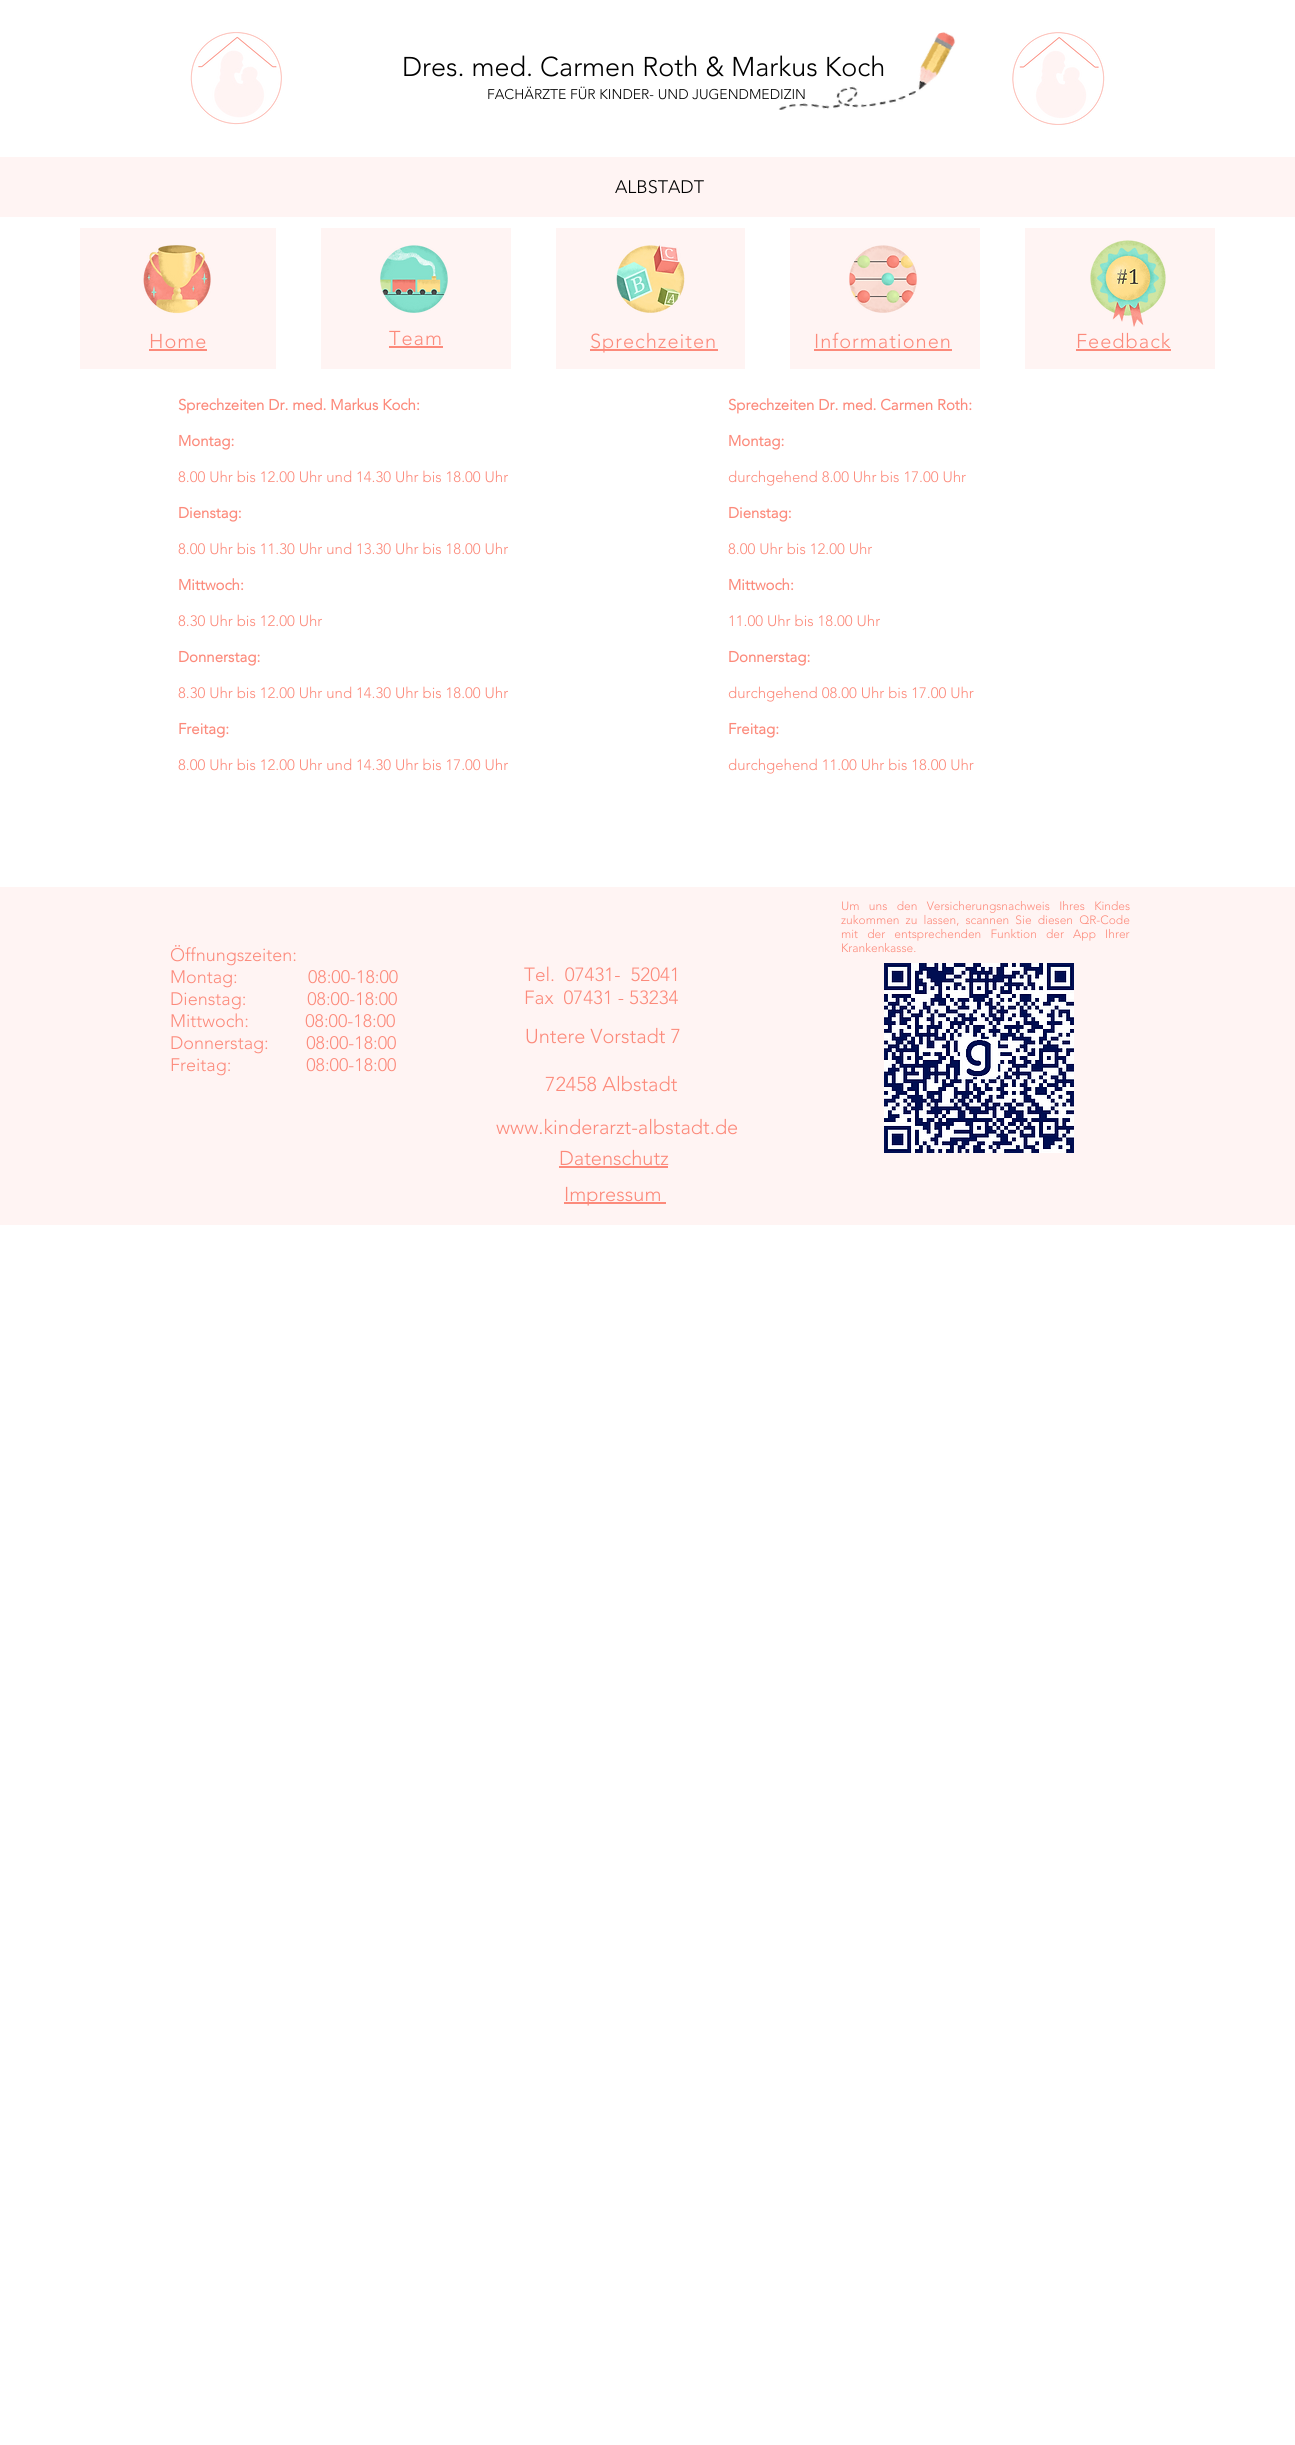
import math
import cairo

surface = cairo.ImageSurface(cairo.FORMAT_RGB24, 1295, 2445)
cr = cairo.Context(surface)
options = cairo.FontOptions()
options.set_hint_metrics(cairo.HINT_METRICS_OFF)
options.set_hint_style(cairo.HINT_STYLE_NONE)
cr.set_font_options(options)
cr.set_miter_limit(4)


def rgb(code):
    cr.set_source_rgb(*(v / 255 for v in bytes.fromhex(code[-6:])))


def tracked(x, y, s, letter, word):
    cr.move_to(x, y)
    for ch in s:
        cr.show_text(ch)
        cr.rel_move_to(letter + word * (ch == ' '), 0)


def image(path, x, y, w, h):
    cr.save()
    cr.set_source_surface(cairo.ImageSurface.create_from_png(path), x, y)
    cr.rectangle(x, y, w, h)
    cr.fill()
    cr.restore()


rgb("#ffffff")
cr.paint()
image("img/1.png", 190, 32, 92, 93)
image("img/3.png", 1012, 32, 93, 93)
rgb("#fff4f3")
cr.rectangle(0, 157, 1295, 60)
cr.fill()
cr.rectangle(80, 228, 196, 141)
cr.fill()
image("img/4.png", 143, 245, 68, 69)
rgb("#fc8a7b")
cr.rectangle(149, 349, 58, 2)
cr.fill()
rgb("#fff4f3")
cr.rectangle(321, 228, 190, 141)
cr.fill()
image("img/5.png", 380, 245, 68, 68)
rgb("#fc8a7b")
cr.rectangle(389, 346, 54, 2)
cr.fill()
rgb("#fff4f3")
cr.rectangle(556, 228, 189, 141)
cr.fill()
image("img/6.png", 616, 245, 69, 68)
rgb("#fc8a7b")
cr.rectangle(590, 349, 128, 2)
cr.fill()
rgb("#fff4f3")
cr.rectangle(790, 228, 190, 141)
cr.fill()
image("img/7.png", 849, 245, 68, 68)
rgb("#fc8a7b")
cr.rectangle(814, 349, 138, 2)
cr.fill()
rgb("#fff4f3")
cr.rectangle(1025, 228, 190, 141)
cr.fill()
image("img/8.png", 1090, 240, 76, 87)
for x, y, w, h, color in [
    (1076, 349, 95, 2, "#fc8a7b"),
    (0, 887, 1295, 338, "#fff4f3"),
    (559, 1166, 109, 2, "#fc8a7b"),
    (564, 1202, 102, 2, "#fc8a7b"),
]:
    rgb(color)
    cr.rectangle(x, y, w, h)
    cr.fill()
image("img/9.png", 884, 963, 190, 190)
cr.select_font_face("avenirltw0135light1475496 Light")
cr.set_font_size(27)
rgb("#000000")
cr.move_to(402, 76)
cr.show_text("Dres. med. Carmen Roth & Markus Koch")
cr.set_font_size(14)
cr.move_to(487, 99)
cr.show_text("FACHÄRZTE FÜR KINDER- UND JUGENDMEDIZIN")
image("img/2.png", 778, 32, 178, 78)
cr.set_font_size(18)
cr.move_to(615, 193)
cr.show_text("ALBSTADT")
cr.set_font_size(20)
rgb("#fc8a7b")
for x, y, s in [
    (149, 348, "Home"),
    (389, 345, "Team"),
    (590, 348, "Sprechzeiten"),
    (814, 348, "Informationen"),
    (1076, 348, "Feedback"),
]:
    tracked(x, y, s, 1, 0)
cr.select_font_face("avenirltw0135light1475496", cairo.FONT_SLANT_NORMAL, cairo.FONT_WEIGHT_BOLD)
cr.set_font_size(15)
cr.move_to(178, 410)
cr.show_text("Sprechzeiten Dr. med. Markus Koch:")
cr.move_to(178, 446)
cr.show_text("Montag:")
cr.select_font_face("avenirltw0135light1475496 Light")
cr.move_to(178, 482)
cr.show_text("8.00 Uhr bis 12.00 Uhr und 14.30 Uhr bis 18.00 Uhr")
cr.select_font_face("avenirltw0135light1475496", cairo.FONT_SLANT_NORMAL, cairo.FONT_WEIGHT_BOLD)
cr.move_to(178, 518)
cr.show_text("Dienstag:")
cr.select_font_face("avenirltw0135light1475496 Light")
cr.move_to(178, 554)
cr.show_text("8.00 Uhr bis 11.30 Uhr und 13.30 Uhr bis 18.00 Uhr")
cr.select_font_face("avenirltw0135light1475496", cairo.FONT_SLANT_NORMAL, cairo.FONT_WEIGHT_BOLD)
cr.move_to(178, 590)
cr.show_text("Mittwoch:")
cr.select_font_face("avenirltw0135light1475496 Light")
cr.move_to(178, 626)
cr.show_text("8.30 Uhr bis 12.00 Uhr")
cr.select_font_face("avenirltw0135light1475496", cairo.FONT_SLANT_NORMAL, cairo.FONT_WEIGHT_BOLD)
cr.move_to(178, 662)
cr.show_text("Donnerstag:")
cr.select_font_face("avenirltw0135light1475496 Light")
cr.move_to(178, 698)
cr.show_text("8.30 Uhr bis 12.00 Uhr und 14.30 Uhr bis 18.00 Uhr")
cr.select_font_face("avenirltw0135light1475496", cairo.FONT_SLANT_NORMAL, cairo.FONT_WEIGHT_BOLD)
cr.move_to(178, 734)
cr.show_text("Freitag:")
cr.select_font_face("avenirltw0135light1475496 Light")
cr.move_to(178, 770)
cr.show_text("8.00 Uhr bis 12.00 Uhr und 14.30 Uhr bis 17.00 Uhr")
cr.select_font_face("avenirltw0135light1475496", cairo.FONT_SLANT_NORMAL, cairo.FONT_WEIGHT_BOLD)
cr.move_to(728, 410)
cr.show_text("Sprechzeiten Dr. med. Carmen Roth:")
cr.move_to(728, 446)
cr.show_text("Montag:")
cr.select_font_face("avenirltw0135light1475496 Light")
cr.move_to(728, 482)
cr.show_text("durchgehend 8.00 Uhr bis 17.00 Uhr")
cr.select_font_face("avenirltw0135light1475496", cairo.FONT_SLANT_NORMAL, cairo.FONT_WEIGHT_BOLD)
cr.move_to(728, 518)
cr.show_text("Dienstag:")
cr.select_font_face("avenirltw0135light1475496 Light")
cr.move_to(728, 554)
cr.show_text("8.00 Uhr bis 12.00 Uhr")
cr.select_font_face("avenirltw0135light1475496", cairo.FONT_SLANT_NORMAL, cairo.FONT_WEIGHT_BOLD)
cr.move_to(728, 590)
cr.show_text("Mittwoch:")
cr.select_font_face("avenirltw0135light1475496 Light")
cr.move_to(728, 626)
cr.show_text("11.00 Uhr bis 18.00 Uhr")
cr.select_font_face("avenirltw0135light1475496", cairo.FONT_SLANT_NORMAL, cairo.FONT_WEIGHT_BOLD)
cr.move_to(728, 662)
cr.show_text("Donnerstag:")
cr.select_font_face("avenirltw0135light1475496 Light")
cr.move_to(728, 698)
cr.show_text("durchgehend 08.00 Uhr bis 17.00 Uhr")
cr.select_font_face("avenirltw0135light1475496", cairo.FONT_SLANT_NORMAL, cairo.FONT_WEIGHT_BOLD)
cr.move_to(728, 734)
cr.show_text("Freitag:")
cr.select_font_face("avenirltw0135light1475496 Light")
cr.move_to(728, 770)
cr.show_text("durchgehend 11.00 Uhr bis 18.00 Uhr")
cr.set_font_size(12)
tracked(841, 910, "Um uns den Versicherungsnachweis Ihres Kindes", 0, 6.25)
tracked(841, 924, "zukommen zu lassen, scannen Sie diesen QR-Code", 0, 3)
tracked(841, 938, "mit der entsprechenden Funktion der App Ihrer", 0, 6)
cr.move_to(841, 952)
cr.show_text("Krankenkasse.")
cr.set_font_size(18)
for x, y, s in [
    (170, 961, "Öffnungszeiten:"),
    (170, 983, "Montag:               08:00-18:00"),
    (170, 1005, "Dienstag:             08:00-18:00"),
    (170, 1027, "Mittwoch:            08:00-18:00"),
    (170, 1049, "Donnerstag:        08:00-18:00"),
    (170, 1071, "Freitag:                08:00-18:00"),
]:
    cr.move_to(x, y)
    cr.show_text(s)
cr.set_font_size(19)
cr.move_to(524, 981)
cr.show_text("Tel.  07431-  52041")
cr.move_to(524, 1004)
cr.show_text("Fax  07431 - 53234")
cr.set_font_size(20)
for x, y, s in [
    (525, 1043, "Untere Vorstadt 7"),
    (545, 1091, "72458 Albstadt"),
    (496, 1134, "www.kinderarzt-albstadt.de"),
    (559, 1165, "Datenschutz"),
    (564, 1201, "Impressum"),
]:
    cr.move_to(x, y)
    cr.show_text(s)
surface.write_to_png("page.png")
